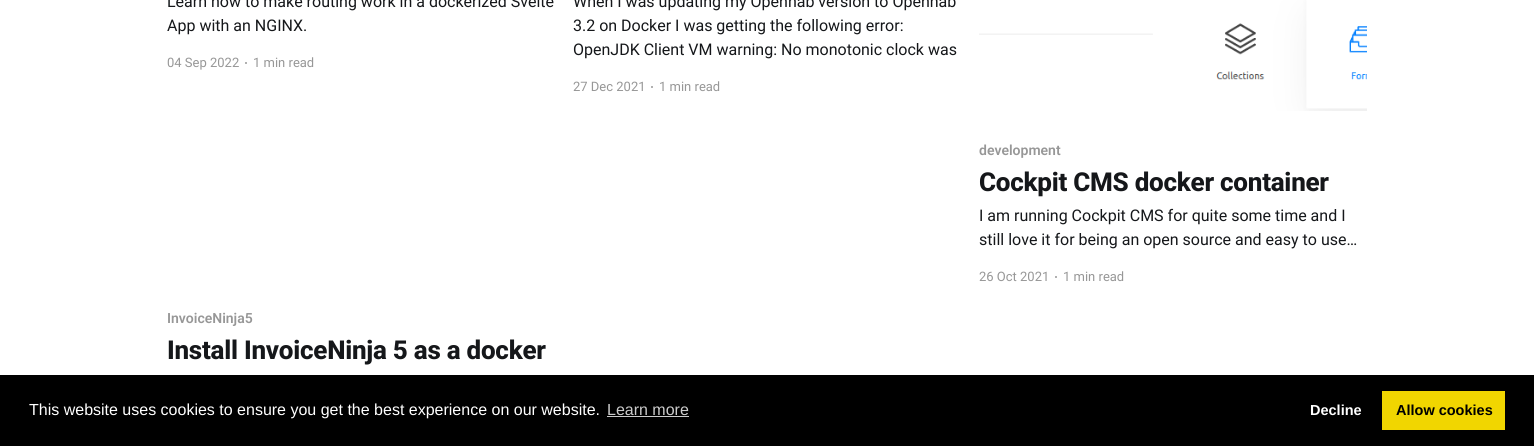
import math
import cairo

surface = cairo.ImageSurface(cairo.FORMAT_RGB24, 1534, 446)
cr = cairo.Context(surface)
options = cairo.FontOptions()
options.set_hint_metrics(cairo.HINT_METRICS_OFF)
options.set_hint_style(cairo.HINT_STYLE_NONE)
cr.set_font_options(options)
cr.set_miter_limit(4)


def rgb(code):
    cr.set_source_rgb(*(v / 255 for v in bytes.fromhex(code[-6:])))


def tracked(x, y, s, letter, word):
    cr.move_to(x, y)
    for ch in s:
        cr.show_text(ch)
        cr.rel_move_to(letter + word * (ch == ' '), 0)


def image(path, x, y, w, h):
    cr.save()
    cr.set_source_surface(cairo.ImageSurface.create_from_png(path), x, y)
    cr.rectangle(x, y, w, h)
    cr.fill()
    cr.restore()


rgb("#ffffff")
cr.paint()
rgb("#979797")
cr.arc(246, 63, 1, 0, 2 * math.pi)
cr.fill()
cr.arc(652, 87, 1, 0, 2 * math.pi)
cr.fill()
image("img/1.png", 979, 0, 388, 111)
cr.arc(1056, 277, 1, 0, 2 * math.pi)
cr.fill()
for x, y, w, h, color in [
    (0, 375, 1534, 71, "#000000"),
    (607, 416, 82, 1, "#cccccc"),
    (1382, 391, 123, 39, "#f1d600"),
]:
    rgb(color)
    cr.rectangle(x, y, w, h)
    cr.fill()
cr.select_font_face("Roboto")
cr.set_font_size(16)
rgb("#15171a")
cr.move_to(167, 7)
cr.show_text("Learn how to make routing work in a dockerized Svelte")
cr.move_to(167, 31)
cr.show_text("App with an NGINX.")
cr.set_font_size(13)
rgb("#979797")
cr.move_to(167, 67)
cr.show_text("04 Sep 2022")
cr.move_to(253, 67)
cr.show_text("1 min read")
cr.set_font_size(16)
rgb("#15171a")
for x, y, s in [
    (573, 7, "When I was updating my Openhab version to Openhab"),
    (573, 31, "3.2 on Docker I was getting the following error:"),
    (573, 55, "OpenJDK Client VM warning: No monotonic clock was"),
]:
    cr.move_to(x, y)
    cr.show_text(s)
cr.set_font_size(13)
rgb("#979797")
cr.move_to(573, 91)
cr.show_text("27 Dec 2021")
cr.move_to(659, 91)
cr.show_text("1 min read")
cr.select_font_face("Roboto SemiBold")
cr.set_font_size(14)
cr.move_to(979, 155)
cr.show_text("development")
cr.select_font_face("Roboto ExtraBold")
cr.set_font_size(26)
rgb("#15171a")
tracked(979, 191, "Cockpit CMS docker container", -0.25, 0)
cr.select_font_face("Roboto")
cr.set_font_size(16)
cr.move_to(979, 221)
cr.show_text("I am running Cockpit CMS for quite some time and I")
cr.move_to(979, 245)
cr.show_text("still love it for being an open source and easy to use…")
cr.set_font_size(13)
rgb("#979797")
cr.move_to(979, 281)
cr.show_text("26 Oct 2021")
cr.move_to(1063, 281)
cr.show_text("1 min read")
cr.select_font_face("Roboto SemiBold")
cr.set_font_size(14)
cr.move_to(167, 323)
cr.show_text("InvoiceNinja5")
cr.select_font_face("Roboto ExtraBold")
cr.set_font_size(26)
rgb("#15171a")
tracked(167, 359, "Install InvoiceNinja 5 as a docker", -0.25, 0)
cr.select_font_face("Liberation Sans")
cr.set_font_size(16)
rgb("#ffffff")
cr.move_to(29, 415)
cr.show_text("This website uses cookies to ensure you get the best experience on our website.")
rgb("#cccccc")
cr.move_to(607, 415)
cr.show_text("Learn more")
cr.select_font_face("Liberation Sans", cairo.FONT_SLANT_NORMAL, cairo.FONT_WEIGHT_BOLD)
cr.set_font_size(14.5)
rgb("#ffffff")
cr.move_to(1310, 415)
cr.show_text("Decline")
rgb("#000000")
cr.move_to(1396, 415)
cr.show_text("Allow cookies")
surface.write_to_png("page.png")
